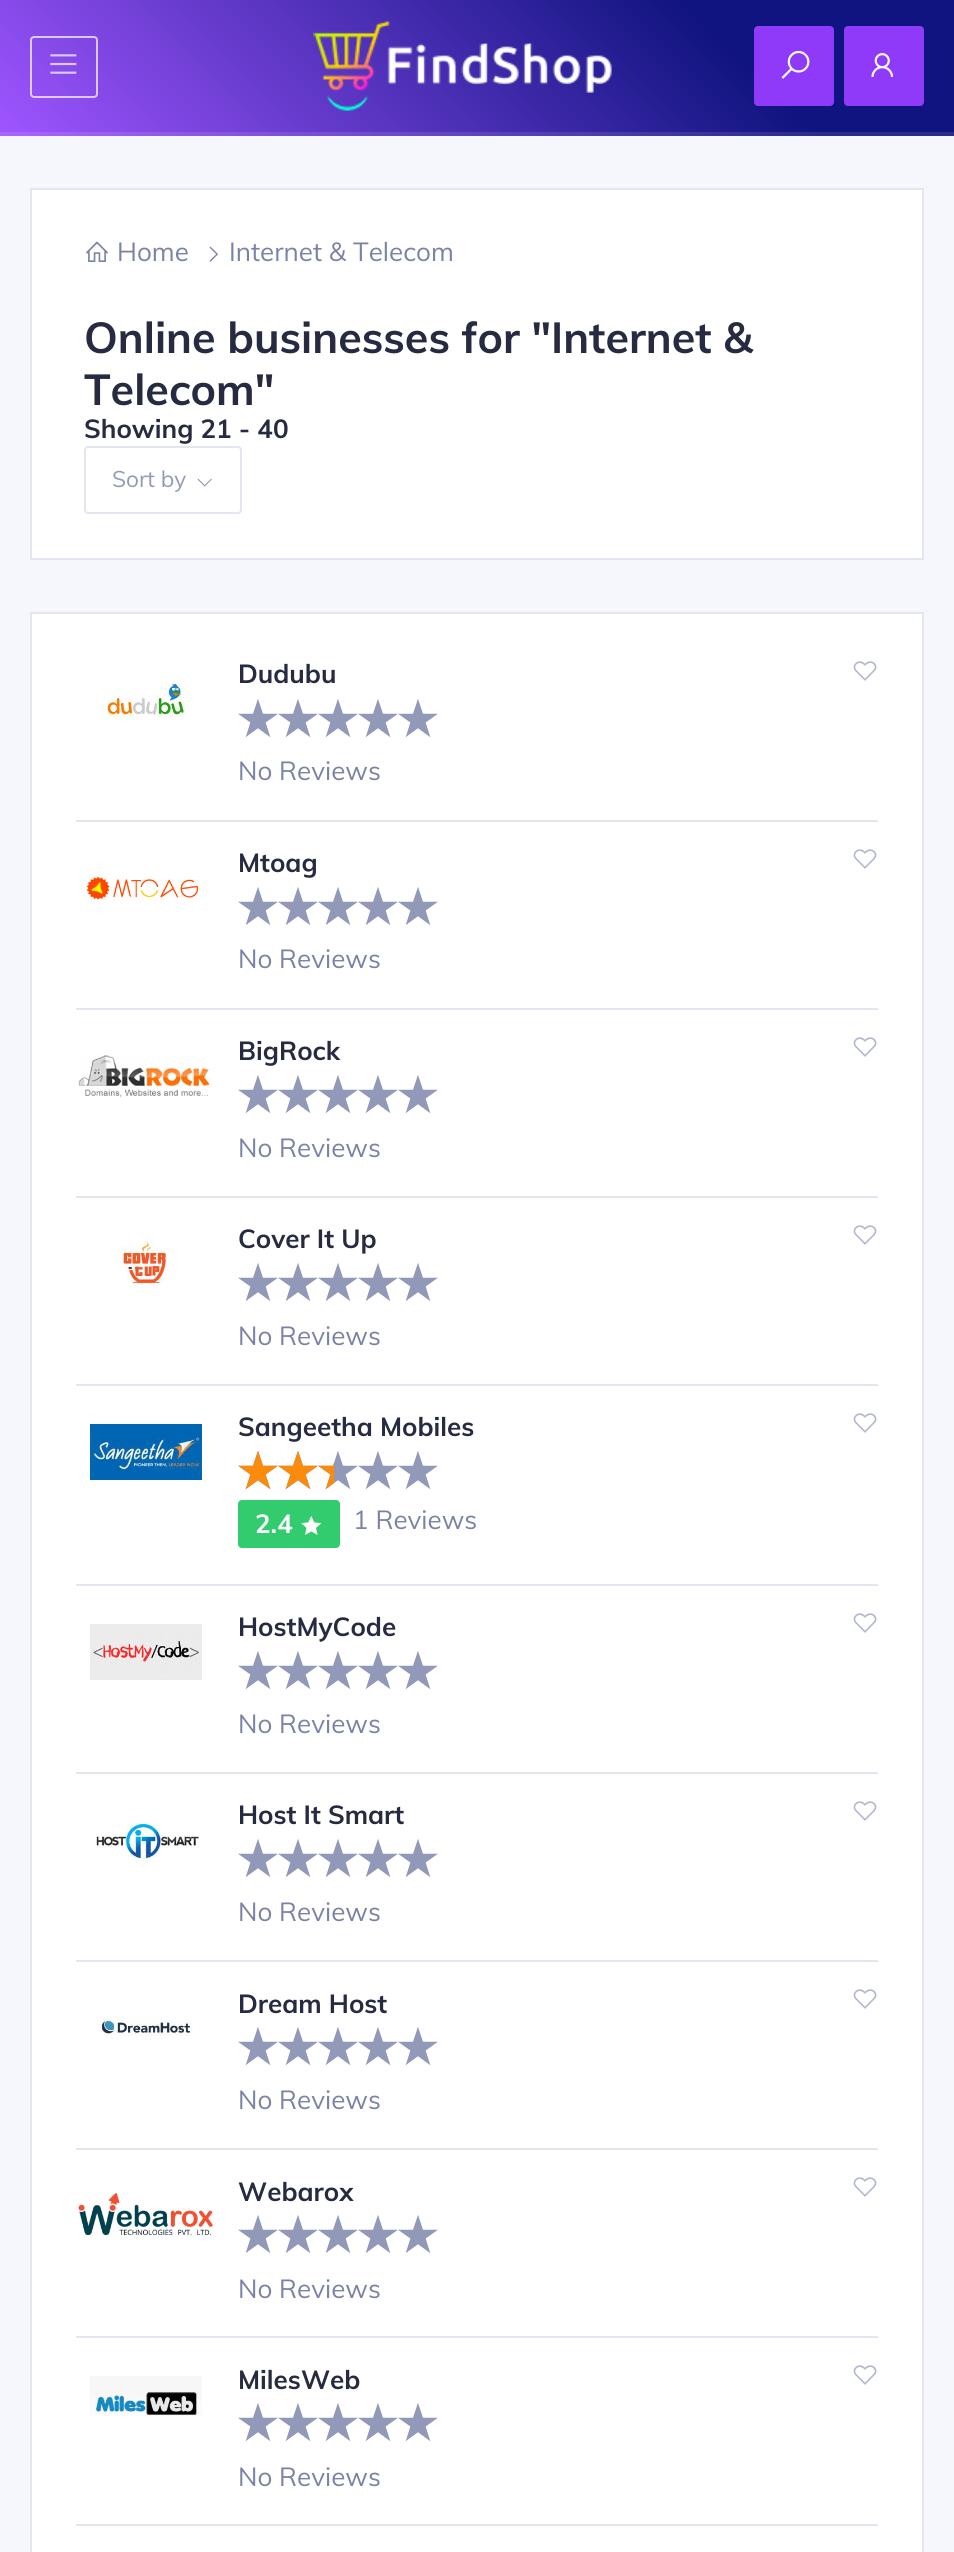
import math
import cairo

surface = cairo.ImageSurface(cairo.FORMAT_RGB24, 954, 2552)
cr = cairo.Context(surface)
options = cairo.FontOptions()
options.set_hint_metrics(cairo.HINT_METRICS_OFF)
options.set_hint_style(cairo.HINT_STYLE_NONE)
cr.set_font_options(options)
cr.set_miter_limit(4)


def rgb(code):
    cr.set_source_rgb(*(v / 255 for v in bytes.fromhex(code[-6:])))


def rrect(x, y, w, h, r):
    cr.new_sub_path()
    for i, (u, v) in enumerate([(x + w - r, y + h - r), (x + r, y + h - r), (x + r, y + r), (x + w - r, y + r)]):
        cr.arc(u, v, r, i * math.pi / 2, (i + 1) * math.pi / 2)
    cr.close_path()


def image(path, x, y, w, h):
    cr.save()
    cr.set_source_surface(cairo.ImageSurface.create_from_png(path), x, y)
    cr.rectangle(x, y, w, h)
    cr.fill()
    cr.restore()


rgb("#f5f7fc")
cr.paint()
gradient = cairo.LinearGradient(750, -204, 205, 340)
gradient.add_color_stop_rgba(0.25, 0.063, 0.078, 0.502, 1)
gradient.add_color_stop_rgba(1, 0.624, 0.333, 1, 1)
cr.set_source(gradient)
cr.rectangle(0, 0, 954, 132)
cr.fill()
gradient = cairo.LinearGradient(750, -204, 205, 340)
gradient.add_color_stop_rgba(0.25, 0.157, 0.173, 0.553, 1)
gradient.add_color_stop_rgba(1, 0.663, 0.4, 1, 1)
cr.set_source(gradient)
cr.rectangle(0, 132, 954, 2)
cr.fill()
cr.rectangle(0, 134, 954, 2)
cr.fill()
rrect(31, 37, 66, 60, 3)
cr.set_source_rgba(1, 1, 1, 0.7)
cr.stroke()
image("img/1.png", 50, 54, 27, 20)
image("img/2.png", 313, 21, 299, 90)
rgb("#903af9")
rrect(754, 26, 80, 80, 4)
cr.fill()
image("img/3.png", 781, 50, 29, 29)
rrect(844, 26, 80, 80, 4)
cr.fill()
image("img/4.png", 871, 53, 23, 24)
rgb("#ffffff")
cr.rectangle(31, 189, 892, 370)
cr.fill_preserve()
rgb("#e3e6ef")
cr.stroke()
image("img/5.png", 85, 241, 24, 21)
image("img/6.png", 209, 246, 9, 16)
rrect(85, 447, 156, 66, 3)
cr.stroke()
image("img/7.png", 197, 478, 15, 9)
rgb("#ffffff")
cr.rectangle(31, 613, 892, 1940)
cr.fill_preserve()
rgb("#e3e6ef")
cr.stroke()
cr.rectangle(76, 820, 802, 2)
cr.fill()
image("img/8.png", 104, 681, 85, 36)
image("img/9.png", 853, 661, 24, 20)
image("img/10.png", 238, 699, 200, 39)
cr.rectangle(76, 1008, 802, 2)
cr.fill()
image("img/11.png", 86, 877, 112, 23)
image("img/9.png", 853, 849, 24, 20)
image("img/10.png", 238, 887, 200, 39)
cr.rectangle(76, 1196, 802, 2)
cr.fill()
image("img/12.png", 78, 1055, 132, 43)
image("img/9.png", 853, 1037, 24, 20)
image("img/10.png", 238, 1075, 200, 39)
cr.rectangle(76, 1384, 802, 2)
cr.fill()
image("img/13.png", 117, 1236, 54, 54)
image("img/9.png", 853, 1225, 24, 20)
image("img/10.png", 238, 1263, 200, 39)
cr.rectangle(76, 1584, 802, 2)
cr.fill()
image("img/14.png", 90, 1424, 112, 56)
image("img/9.png", 853, 1413, 24, 20)
image("img/10.png", 238, 1451, 200, 39)
image("img/15.png", 238, 1451, 96, 39)
rgb("#32cc6f")
rrect(238, 1500, 102, 48, 4)
cr.fill()
image("img/16.png", 301, 1516, 21, 19)
rgb("#e3e6ef")
cr.rectangle(76, 1772, 802, 2)
cr.fill()
image("img/17.png", 90, 1624, 112, 56)
image("img/9.png", 853, 1613, 24, 20)
image("img/10.png", 238, 1651, 200, 39)
cr.rectangle(76, 1960, 802, 2)
cr.fill()
image("img/18.png", 95, 1821, 104, 45)
image("img/9.png", 853, 1801, 24, 20)
image("img/10.png", 238, 1839, 200, 39)
cr.rectangle(76, 2148, 802, 2)
cr.fill()
image("img/19.png", 99, 2018, 94, 18)
image("img/9.png", 853, 1989, 24, 20)
image("img/10.png", 238, 2027, 200, 39)
cr.rectangle(76, 2336, 802, 2)
cr.fill()
image("img/20.png", 78, 2193, 135, 42)
image("img/9.png", 853, 2177, 24, 20)
image("img/10.png", 238, 2215, 200, 39)
cr.rectangle(76, 2524, 802, 2)
cr.fill()
image("img/21.png", 90, 2376, 112, 40)
image("img/9.png", 853, 2365, 24, 20)
image("img/10.png", 238, 2403, 200, 39)
cr.select_font_face("Muli")
cr.set_font_size(26)
rgb("#7a82a6")
cr.move_to(117, 261)
cr.show_text("Home")
cr.move_to(229, 261)
cr.show_text("Internet & Telecom")
cr.select_font_face("Muli", cairo.FONT_SLANT_NORMAL, cairo.FONT_WEIGHT_BOLD)
cr.set_font_size(43)
rgb("#272b41")
for x, y, s in [
    (84, 353, "Online businesses for \""),
    (551, 353, "Internet &"),
    (84, 405, "Telecom\""),
]:
    cr.move_to(x, y)
    cr.show_text(s)
cr.set_font_size(26)
cr.move_to(84, 438)
cr.show_text("Showing 21 - 40")
cr.select_font_face("Muli")
cr.set_font_size(22.5)
rgb("#9299b8")
cr.move_to(112, 487)
cr.show_text("Sort by")
cr.select_font_face("Muli", cairo.FONT_SLANT_NORMAL, cairo.FONT_WEIGHT_BOLD)
cr.set_font_size(26)
rgb("#272b41")
cr.move_to(238, 683)
cr.show_text("Dudubu")
cr.select_font_face("Muli")
rgb("#7a82a6")
cr.move_to(238, 780)
cr.show_text("No Reviews")
cr.select_font_face("Muli", cairo.FONT_SLANT_NORMAL, cairo.FONT_WEIGHT_BOLD)
rgb("#272b41")
cr.move_to(238, 872)
cr.show_text("Mtoag")
cr.select_font_face("Muli")
rgb("#7a82a6")
cr.move_to(238, 968)
cr.show_text("No Reviews")
cr.select_font_face("Muli", cairo.FONT_SLANT_NORMAL, cairo.FONT_WEIGHT_BOLD)
rgb("#272b41")
cr.move_to(238, 1060)
cr.show_text("BigRock")
cr.select_font_face("Muli")
rgb("#7a82a6")
cr.move_to(238, 1157)
cr.show_text("No Reviews")
cr.select_font_face("Muli", cairo.FONT_SLANT_NORMAL, cairo.FONT_WEIGHT_BOLD)
rgb("#272b41")
cr.move_to(238, 1248)
cr.show_text("Cover It Up")
cr.select_font_face("Muli")
rgb("#7a82a6")
cr.move_to(238, 1345)
cr.show_text("No Reviews")
cr.select_font_face("Muli", cairo.FONT_SLANT_NORMAL, cairo.FONT_WEIGHT_BOLD)
rgb("#272b41")
cr.move_to(238, 1436)
cr.show_text("Sangeetha Mobiles")
rgb("#ffffff")
cr.move_to(255, 1533)
cr.show_text("2.4")
cr.select_font_face("Muli")
rgb("#7a82a6")
cr.move_to(353, 1529)
cr.show_text("1 Reviews")
cr.select_font_face("Muli", cairo.FONT_SLANT_NORMAL, cairo.FONT_WEIGHT_BOLD)
rgb("#272b41")
cr.move_to(238, 1636)
cr.show_text("HostMyCode")
cr.select_font_face("Muli")
rgb("#7a82a6")
cr.move_to(238, 1733)
cr.show_text("No Reviews")
cr.select_font_face("Muli", cairo.FONT_SLANT_NORMAL, cairo.FONT_WEIGHT_BOLD)
rgb("#272b41")
cr.move_to(238, 1824)
cr.show_text("Host It Smart")
cr.select_font_face("Muli")
rgb("#7a82a6")
cr.move_to(238, 1921)
cr.show_text("No Reviews")
cr.select_font_face("Muli", cairo.FONT_SLANT_NORMAL, cairo.FONT_WEIGHT_BOLD)
rgb("#272b41")
cr.move_to(238, 2013)
cr.show_text("Dream Host")
cr.select_font_face("Muli")
rgb("#7a82a6")
cr.move_to(238, 2109)
cr.show_text("No Reviews")
cr.select_font_face("Muli", cairo.FONT_SLANT_NORMAL, cairo.FONT_WEIGHT_BOLD)
rgb("#272b41")
cr.move_to(238, 2201)
cr.show_text("Webarox")
cr.select_font_face("Muli")
rgb("#7a82a6")
cr.move_to(238, 2298)
cr.show_text("No Reviews")
cr.select_font_face("Muli", cairo.FONT_SLANT_NORMAL, cairo.FONT_WEIGHT_BOLD)
rgb("#272b41")
cr.move_to(238, 2389)
cr.show_text("MilesWeb")
cr.select_font_face("Muli")
rgb("#7a82a6")
cr.move_to(238, 2486)
cr.show_text("No Reviews")
surface.write_to_png("page.png")
